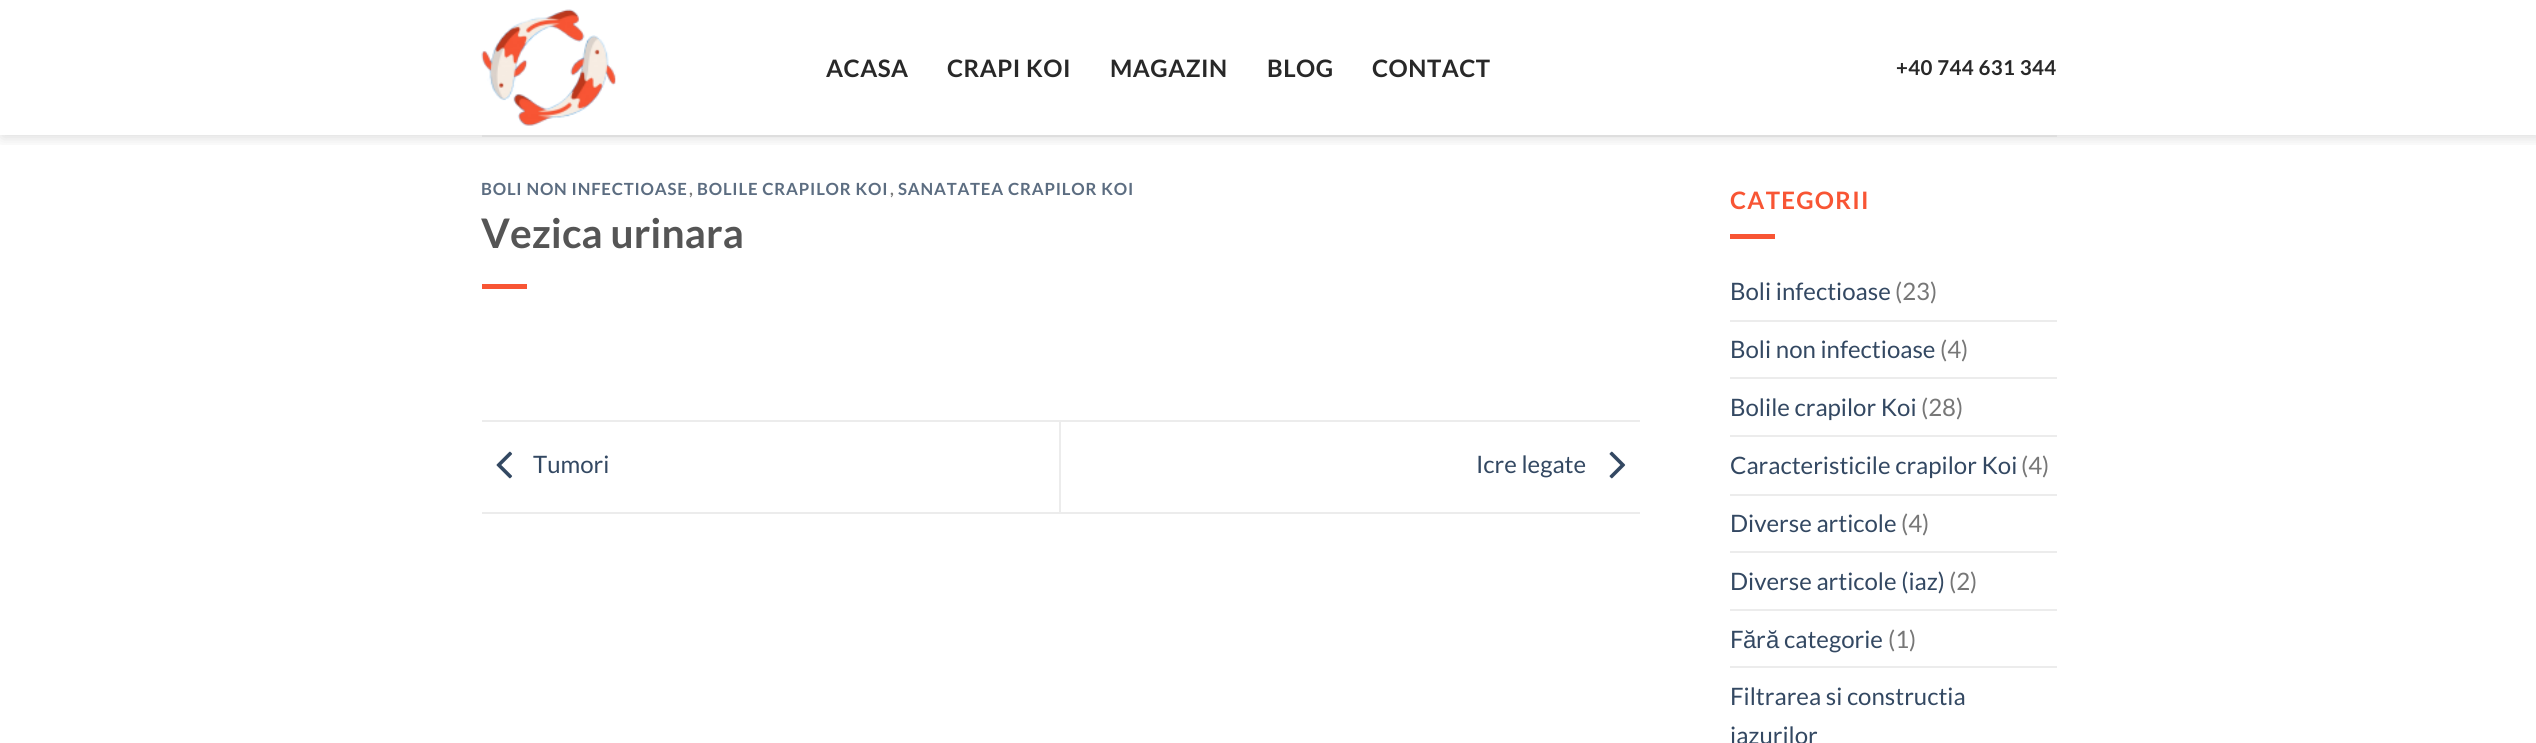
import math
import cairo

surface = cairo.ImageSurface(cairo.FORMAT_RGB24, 2536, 743)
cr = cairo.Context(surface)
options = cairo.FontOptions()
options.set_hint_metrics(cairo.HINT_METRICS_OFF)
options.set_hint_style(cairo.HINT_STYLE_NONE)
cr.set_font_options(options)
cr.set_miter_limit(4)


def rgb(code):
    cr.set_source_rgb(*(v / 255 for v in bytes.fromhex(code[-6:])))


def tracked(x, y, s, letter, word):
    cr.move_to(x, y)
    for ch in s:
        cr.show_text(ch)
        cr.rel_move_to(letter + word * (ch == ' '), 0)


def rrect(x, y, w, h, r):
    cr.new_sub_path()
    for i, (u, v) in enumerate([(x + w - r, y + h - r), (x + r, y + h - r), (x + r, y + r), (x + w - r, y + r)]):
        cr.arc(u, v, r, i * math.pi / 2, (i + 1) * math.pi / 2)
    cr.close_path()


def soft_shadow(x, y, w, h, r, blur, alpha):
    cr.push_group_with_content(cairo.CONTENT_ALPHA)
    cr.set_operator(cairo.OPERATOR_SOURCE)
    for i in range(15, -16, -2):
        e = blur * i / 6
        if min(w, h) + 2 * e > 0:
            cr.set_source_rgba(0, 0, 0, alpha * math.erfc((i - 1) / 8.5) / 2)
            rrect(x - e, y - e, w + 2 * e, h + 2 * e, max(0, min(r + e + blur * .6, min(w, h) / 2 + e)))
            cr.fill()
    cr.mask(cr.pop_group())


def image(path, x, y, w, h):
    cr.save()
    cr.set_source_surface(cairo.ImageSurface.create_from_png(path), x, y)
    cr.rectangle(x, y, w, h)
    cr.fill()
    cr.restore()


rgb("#ffffff")
cr.paint()
cr.save()
cr.rectangle(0, 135, 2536, 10)
cr.clip()
rgb("#000000")
soft_shadow(2, 2, 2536, 135, 0, 7.5, 0.15)
cr.restore()
image("img/1.png", 481, 9, 135, 117)
for x, y, w, h, color in [
    (482, 135, 1575, 2, "#dedede"),
    (482, 284, 45, 5, "#f85534"),
    (482, 420, 1158, 2, "#ececec"),
    (482, 512, 1158, 2, "#ececec"),
]:
    rgb(color)
    cr.rectangle(x, y, w, h)
    cr.fill()
image("img/2.png", 496, 451, 17, 28)
cr.rectangle(1059, 422, 2, 90)
cr.fill()
image("img/3.png", 1609, 451, 17, 28)
for x, y, w, h, color in [
    (1730, 234, 45, 5, "#f85534"),
    (1730, 320, 327, 2, "#ececec"),
    (1730, 377, 327, 2, "#ececec"),
    (1730, 435, 327, 2, "#ececec"),
    (1730, 494, 327, 2, "#ececec"),
    (1730, 551, 327, 2, "#ececec"),
    (1730, 609, 327, 2, "#ececec"),
    (1730, 666, 327, 2, "#ececec"),
]:
    rgb(color)
    cr.rectangle(x, y, w, h)
    cr.fill()
cr.select_font_face("Lato", cairo.FONT_SLANT_NORMAL, cairo.FONT_WEIGHT_BOLD)
cr.set_font_size(24)
rgb("#282828")
for x, y, s in [
    (826, 77, "ACASA"),
    (947, 77, "CRAPI KOI"),
    (1110, 77, "MAGAZIN"),
    (1267, 77, "BLOG"),
    (1372, 77, "CONTACT"),
]:
    tracked(x, y, s, 0.5, 0)
cr.set_font_size(20.5)
tracked(1896, 75, "+40 744 631 344", 0.4, 0)
cr.set_font_size(16.75)
rgb("#5c6d81")
tracked(481, 195, "BOLI NON INFECTIOASE", 0.8, 0)
rgb("#777777")
tracked(689, 195, ",", 0.8, 0)
rgb("#5c6d81")
tracked(697, 195, "BOLILE CRAPILOR KOI", 0.8, 0)
rgb("#777777")
tracked(890, 195, ",", 0.8, 0)
rgb("#5c6d81")
tracked(898, 195, "SANATATEA CRAPILOR KOI", 0.8, 0)
cr.set_font_size(40.75)
rgb("#555555")
cr.move_to(481, 248)
cr.show_text("Vezica urinara")
cr.select_font_face("Lato")
cr.set_font_size(24)
rgb("#334862")
cr.move_to(533, 473)
cr.show_text("Tumori")
cr.move_to(1476, 473)
cr.show_text("Icre legate")
cr.select_font_face("Lato", cairo.FONT_SLANT_NORMAL, cairo.FONT_WEIGHT_BOLD)
rgb("#f85534")
tracked(1730, 209, "CATEGORII", 1.25, 0)
cr.select_font_face("Lato")
rgb("#334862")
cr.move_to(1730, 300)
cr.show_text("Boli infectioase")
rgb("#777777")
cr.move_to(1895, 300)
cr.show_text("(23)")
rgb("#334862")
cr.move_to(1730, 358)
cr.show_text("Boli non infectioase")
rgb("#777777")
cr.move_to(1940, 358)
cr.show_text("(4)")
rgb("#334862")
cr.move_to(1730, 416)
cr.show_text("Bolile crapilor Koi")
rgb("#777777")
cr.move_to(1921, 416)
cr.show_text("(28)")
rgb("#334862")
cr.move_to(1730, 474)
cr.show_text("Caracteristicile crapilor Koi")
rgb("#777777")
cr.move_to(2021, 474)
cr.show_text("(4)")
rgb("#334862")
cr.move_to(1730, 532)
cr.show_text("Diverse articole")
rgb("#777777")
cr.move_to(1901, 532)
cr.show_text("(4)")
rgb("#334862")
cr.move_to(1730, 590)
cr.show_text("Diverse articole (iaz)")
rgb("#777777")
cr.move_to(1949, 590)
cr.show_text("(2)")
rgb("#334862")
cr.move_to(1730, 648)
cr.show_text("F")
cr.select_font_face("Liberation Sans")
cr.move_to(1743, 648)
cr.show_text("ă")
cr.select_font_face("Lato")
cr.move_to(1756, 648)
cr.show_text("r")
cr.select_font_face("Liberation Sans")
cr.move_to(1766, 648)
cr.show_text("ă")
cr.select_font_face("Lato")
cr.move_to(1784, 648)
cr.show_text("categorie")
rgb("#777777")
cr.move_to(1888, 648)
cr.show_text("(1)")
rgb("#334862")
cr.move_to(1730, 705)
cr.show_text("Filtrarea si constructia")
cr.move_to(1730, 744)
cr.show_text("iazurilor")
surface.write_to_png("page.png")
